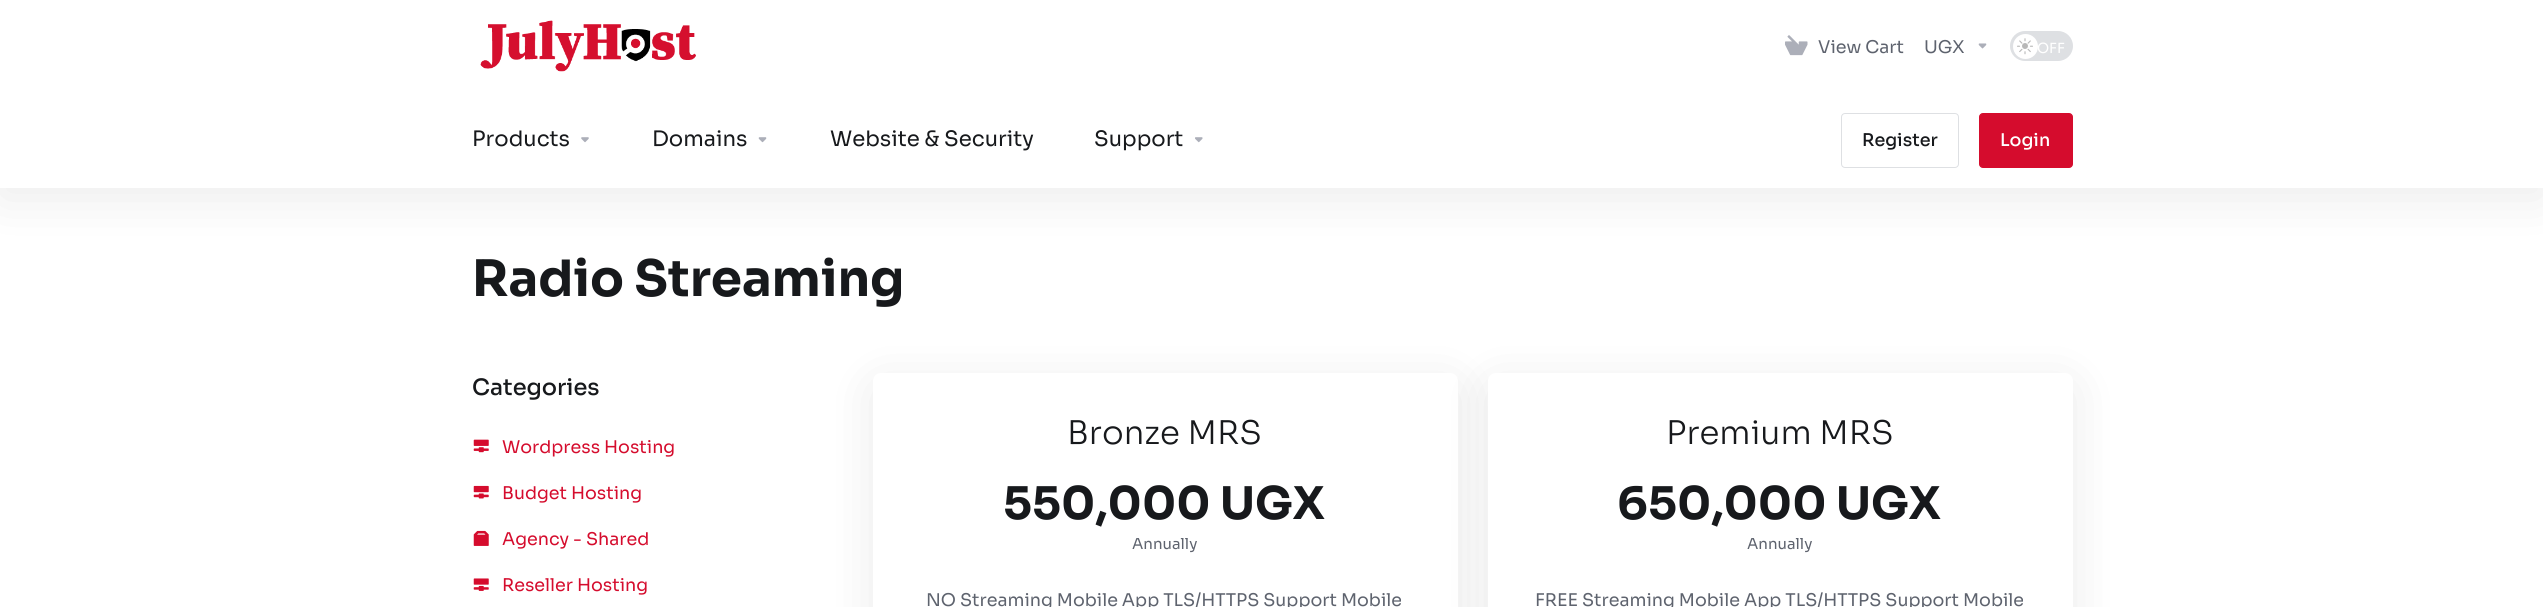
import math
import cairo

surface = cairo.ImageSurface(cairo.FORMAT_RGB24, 2543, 607)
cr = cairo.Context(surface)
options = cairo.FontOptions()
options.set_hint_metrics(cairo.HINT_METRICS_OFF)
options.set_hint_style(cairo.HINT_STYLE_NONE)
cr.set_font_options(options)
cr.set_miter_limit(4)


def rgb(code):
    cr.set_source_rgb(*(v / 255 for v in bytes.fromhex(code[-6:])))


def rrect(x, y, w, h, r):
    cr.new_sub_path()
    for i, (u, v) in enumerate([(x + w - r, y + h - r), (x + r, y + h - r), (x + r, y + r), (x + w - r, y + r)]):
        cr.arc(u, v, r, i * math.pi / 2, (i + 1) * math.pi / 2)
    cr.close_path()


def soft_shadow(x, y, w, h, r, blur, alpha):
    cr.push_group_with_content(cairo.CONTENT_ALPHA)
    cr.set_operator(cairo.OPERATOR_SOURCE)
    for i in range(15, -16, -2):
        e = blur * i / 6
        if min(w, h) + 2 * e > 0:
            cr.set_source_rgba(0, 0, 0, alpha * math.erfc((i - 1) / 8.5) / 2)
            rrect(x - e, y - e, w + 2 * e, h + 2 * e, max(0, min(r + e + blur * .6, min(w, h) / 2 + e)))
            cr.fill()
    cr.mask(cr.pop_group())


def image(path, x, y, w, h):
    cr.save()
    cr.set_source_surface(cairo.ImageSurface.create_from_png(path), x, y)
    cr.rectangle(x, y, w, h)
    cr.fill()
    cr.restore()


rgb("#ffffff")
cr.paint()
rgb("#000000")
soft_shadow(0, 10, 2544, 188, 0, 25, 0.08)
rgb("#ffffff")
cr.rectangle(0, 0, 2543, 188)
cr.fill()
image("img/1.png", 480, 20, 216, 52)
image("img/2.png", 1785, 35, 23, 21)
image("img/3.png", 1978, 43, 9, 6)
rgb("#dee0e3")
rrect(2010, 31, 63, 30, 15)
cr.fill()
rgb("#ffffff")
cr.arc(2025.5, 46.5, 12.5, 0, 2 * math.pi)
cr.fill()
image("img/4.png", 2017, 38, 16, 17)
image("img/5.png", 581, 137, 8, 6)
image("img/6.png", 758, 137, 9, 6)
image("img/7.png", 1195, 137, 8, 6)
rrect(1841.5, 113.5, 117, 54, 3.5)
rgb("#dee0e3")
cr.set_line_width(1)
cr.stroke()
rgb("#d50c2d")
rrect(1979.5, 113.5, 93, 54, 3.5)
cr.fill_preserve()
cr.stroke()
image("img/8.png", 473, 439, 16, 14)
image("img/9.png", 473, 485, 16, 14)
image("img/10.png", 473, 530, 16, 16)
image("img/11.png", 473, 578, 16, 13)
rgb("#000000")
soft_shadow(873, 383, 585, 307, 8, 25, 0.08)
rgb("#ffffff")
rrect(873, 373, 585, 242, 8)
cr.fill()
rgb("#000000")
soft_shadow(1488, 383, 585, 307, 8, 25, 0.08)
rgb("#ffffff")
rrect(1488, 373, 585, 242, 8)
cr.fill()
cr.select_font_face("Sora")
cr.set_font_size(17.5)
rgb("#5e636e")
cr.move_to(1818, 53)
cr.show_text("View Cart")
cr.move_to(1924, 53)
cr.show_text("UGX")
cr.set_font_size(14)
rgb("#ffffff")
cr.move_to(2037, 53)
cr.show_text("OFF")
cr.set_font_size(21.25)
rgb("#17191c")
for x, y, s in [
    (472, 146, "Products"),
    (652, 146, "Domains"),
    (830, 146, "Website & Security"),
    (1094, 146, "Support"),
]:
    cr.move_to(x, y)
    cr.show_text(s)
cr.select_font_face("Sora Medium")
cr.set_font_size(17.5)
cr.move_to(1862, 146)
cr.show_text("Register")
rgb("#ffffff")
cr.move_to(2000, 146)
cr.show_text("Login")
cr.select_font_face("Sora", cairo.FONT_SLANT_NORMAL, cairo.FONT_WEIGHT_BOLD)
cr.set_font_size(50)
rgb("#17191c")
cr.move_to(472, 296)
cr.show_text("Radio Streaming")
cr.select_font_face("Sora Medium")
cr.set_font_size(22.5)
cr.move_to(472, 395)
cr.show_text("Categories")
cr.select_font_face("Sora")
cr.set_font_size(17.5)
rgb("#d50c2d")
for x, y, s in [
    (502, 453, "Wordpress Hosting"),
    (502, 499, "Budget Hosting"),
    (502, 545, "Agency - Shared"),
    (502, 591, "Reseller Hosting"),
]:
    cr.move_to(x, y)
    cr.show_text(s)
cr.select_font_face("Sora Light")
cr.set_font_size(32.5)
rgb("#17191c")
cr.move_to(1067, 444)
cr.show_text("Bronze MRS")
cr.select_font_face("Sora", cairo.FONT_SLANT_NORMAL, cairo.FONT_WEIGHT_BOLD)
cr.set_font_size(45)
cr.move_to(1003, 519)
cr.show_text("550,000 UGX")
cr.select_font_face("Sora")
cr.set_font_size(15)
rgb("#5e636e")
cr.move_to(1132, 549)
cr.show_text("Annually")
cr.set_font_size(17.5)
cr.move_to(926, 606)
cr.show_text("NO Streaming Mobile App TLS/HTTPS Support Mobile")
cr.select_font_face("Sora Light")
cr.set_font_size(32.5)
rgb("#17191c")
cr.move_to(1666, 444)
cr.show_text("Premium MRS")
cr.select_font_face("Sora", cairo.FONT_SLANT_NORMAL, cairo.FONT_WEIGHT_BOLD)
cr.set_font_size(45)
cr.move_to(1617, 519)
cr.show_text("650,000 UGX")
cr.select_font_face("Sora")
cr.set_font_size(15)
rgb("#5e636e")
cr.move_to(1747, 549)
cr.show_text("Annually")
cr.set_font_size(17.5)
cr.move_to(1535, 606)
cr.show_text("FREE Streaming Mobile App TLS/HTTPS Support Mobile")
surface.write_to_png("page.png")
